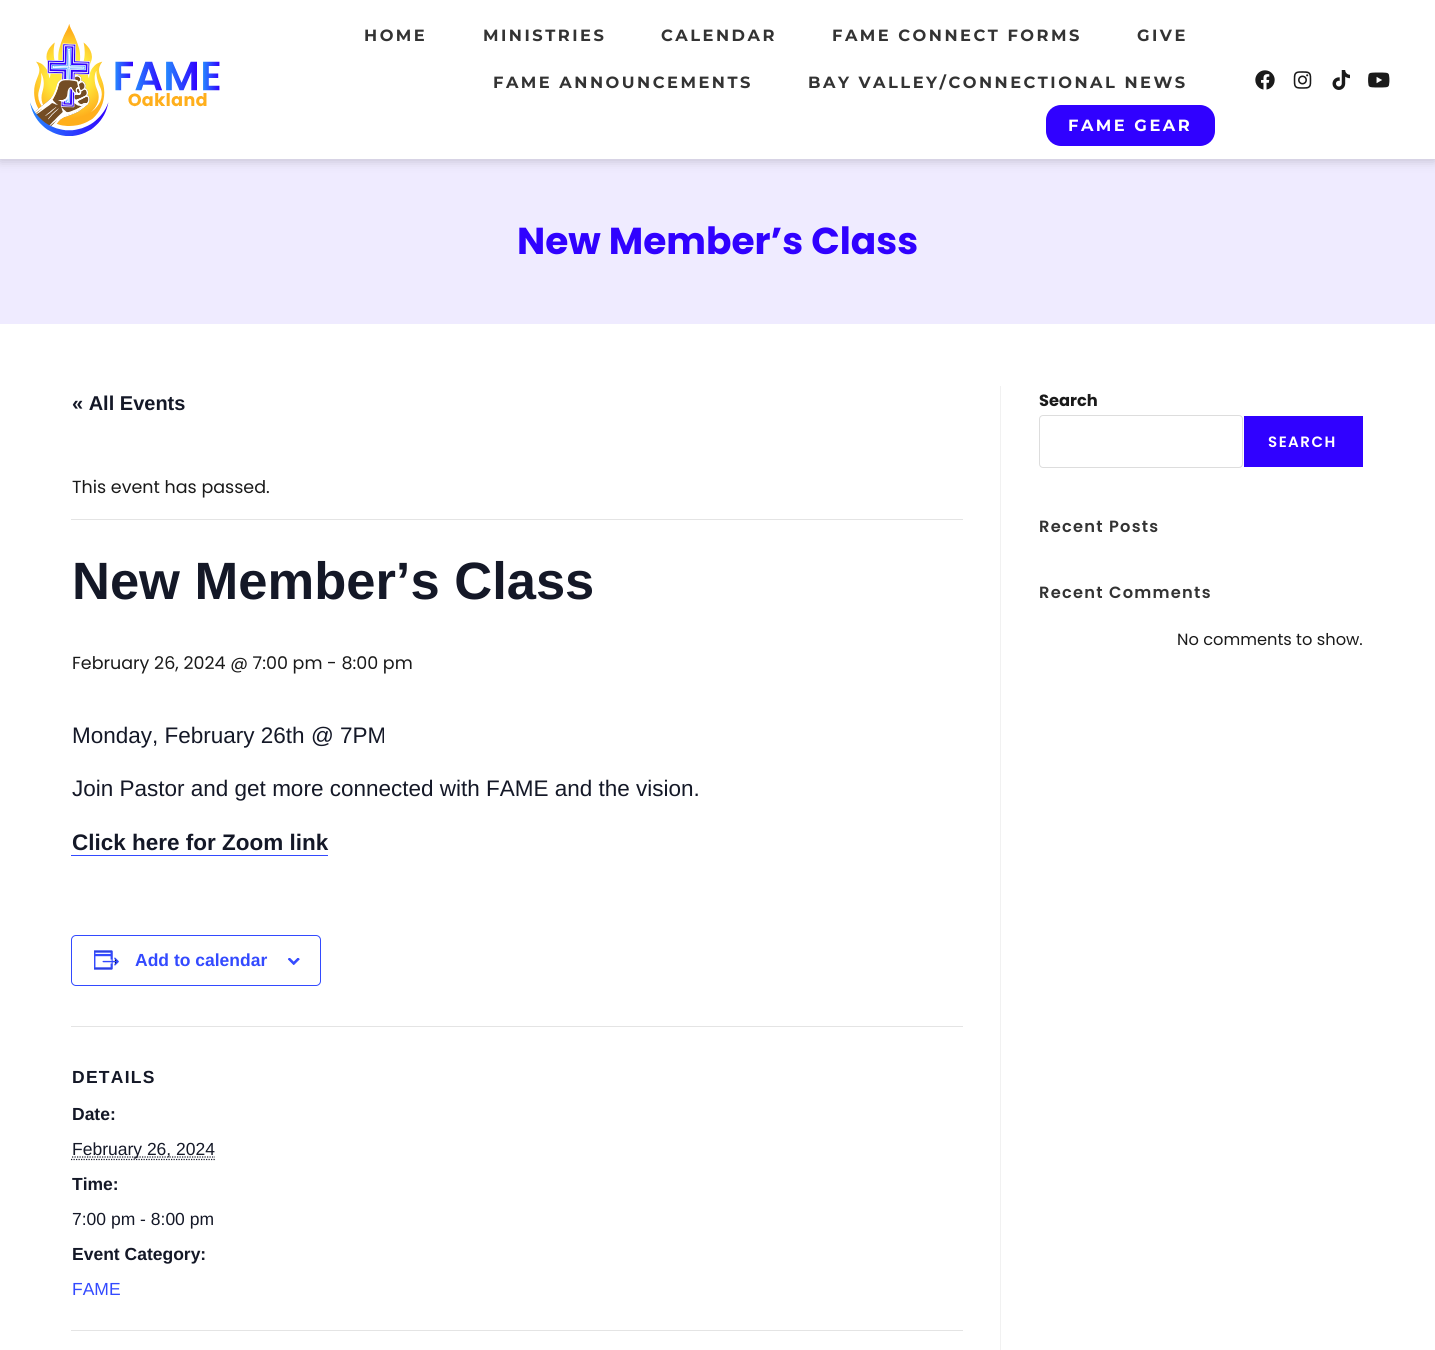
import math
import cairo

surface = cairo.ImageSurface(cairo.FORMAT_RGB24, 1435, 1350)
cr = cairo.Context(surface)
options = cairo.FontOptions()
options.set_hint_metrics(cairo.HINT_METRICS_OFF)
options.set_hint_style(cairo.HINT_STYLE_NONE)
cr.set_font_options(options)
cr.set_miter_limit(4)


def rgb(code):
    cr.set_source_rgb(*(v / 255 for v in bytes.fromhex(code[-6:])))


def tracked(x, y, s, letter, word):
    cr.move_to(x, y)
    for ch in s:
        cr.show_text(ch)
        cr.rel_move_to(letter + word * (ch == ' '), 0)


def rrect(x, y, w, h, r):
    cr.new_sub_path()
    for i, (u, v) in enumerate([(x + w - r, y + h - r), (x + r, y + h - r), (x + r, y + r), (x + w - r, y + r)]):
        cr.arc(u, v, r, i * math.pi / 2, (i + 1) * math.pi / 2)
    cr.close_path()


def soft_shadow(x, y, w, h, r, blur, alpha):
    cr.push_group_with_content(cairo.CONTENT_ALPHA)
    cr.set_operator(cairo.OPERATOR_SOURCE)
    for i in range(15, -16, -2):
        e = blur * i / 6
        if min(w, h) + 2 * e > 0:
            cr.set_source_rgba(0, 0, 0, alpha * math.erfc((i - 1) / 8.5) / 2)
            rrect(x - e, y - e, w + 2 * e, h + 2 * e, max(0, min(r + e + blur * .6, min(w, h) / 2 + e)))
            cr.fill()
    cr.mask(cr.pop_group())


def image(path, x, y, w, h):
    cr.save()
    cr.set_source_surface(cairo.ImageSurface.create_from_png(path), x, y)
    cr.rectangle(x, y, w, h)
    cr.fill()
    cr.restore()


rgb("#ffffff")
cr.paint()
rgb("#efebff")
cr.rectangle(0, 159, 1435, 165)
cr.fill()
cr.save()
cr.set_fill_rule(cairo.FILL_RULE_EVEN_ODD)
cr.new_path()
cr.move_to(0, 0)
cr.line_to(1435, 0)
cr.line_to(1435, 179)
cr.line_to(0, 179)
cr.close_path()
cr.move_to(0, 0)
cr.line_to(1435, 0)
cr.line_to(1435, 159)
cr.line_to(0, 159)
cr.close_path()
cr.clip()
rgb("#000000")
soft_shadow(0, 1, 1435, 159, 0, 6, 0.21)
cr.restore()
image("img/1.png", 30, 24, 190, 112)
rgb("#3001ff")
rrect(1046, 105, 169, 41, 15)
cr.fill()
image("img/2.png", 1255, 70, 20, 20)
image("img/3.png", 1293, 71, 19, 18)
image("img/4.png", 1332, 70, 18, 20)
image("img/5.png", 1368, 72, 22, 16)
for x, y, w, h, color in [
    (1000, 386, 1, 964, "#f1f1f1"),
    (71, 519, 892, 1, "#e4e4e4"),
    (71, 855, 257, 1, "#334aff"),
]:
    rgb(color)
    cr.rectangle(x, y, w, h)
    cr.fill()
rrect(71.5, 935.5, 249, 50, 4.5)
cr.set_line_width(1)
cr.stroke()
image("img/6.png", 94, 950, 25, 20)
image("img/7.png", 288, 958, 12, 7)
rgb("#e4e4e4")
cr.rectangle(71, 1026, 892, 1)
cr.fill()
cr.new_path()
cr.move_to(71, 1159.5)
cr.line_to(215, 1159.5)
rgb("#141827")
cr.set_line_width(1.2)
cr.set_dash([1.25, 1.25])
cr.stroke()
cr.new_path()
cr.move_to(72, 1157)
cr.line_to(215, 1157)
cr.stroke()
rgb("#e4e4e4")
cr.rectangle(71, 1330, 892, 1)
cr.fill()
rrect(1039.5, 415.5, 203, 52, 3.5)
rgb("#dddddd")
cr.set_line_width(1)
cr.set_dash([])
cr.stroke()
rgb("#3001ff")
cr.rectangle(1244, 416, 119, 51)
cr.fill()
cr.select_font_face("Montserrat", cairo.FONT_SLANT_NORMAL, cairo.FONT_WEIGHT_BOLD)
cr.set_font_size(16.25)
rgb("#333333")
for x, y, s in [
    (364, 41, "HOME"),
    (483, 41, "MINISTRIES"),
    (661, 41, "CALENDAR"),
    (832, 41, "FAME CONNECT FORMS"),
    (1137, 41, "GIVE"),
    (493, 88, "FAME ANNOUNCEMENTS"),
    (808, 88, "BAY VALLEY/CONNECTIONAL NEWS"),
]:
    tracked(x, y, s, 2.5, 0)
rgb("#ffffff")
tracked(1068, 131, "FAME GEAR", 2.5, 0)
cr.select_font_face("Poppins", cairo.FONT_SLANT_NORMAL, cairo.FONT_WEIGHT_BOLD)
cr.set_font_size(37.5)
rgb("#3001ff")
cr.move_to(517, 254)
cr.show_text("New Member’s Class")
cr.select_font_face("Liberation Sans", cairo.FONT_SLANT_NORMAL, cairo.FONT_WEIGHT_BOLD)
cr.set_font_size(20)
rgb("#141827")
cr.move_to(72, 410)
cr.show_text("« All Events")
cr.select_font_face("Poppins")
cr.set_font_size(17.5)
rgb("#1a1a1a")
cr.move_to(72, 493)
cr.show_text("This event has passed.")
cr.select_font_face("Liberation Sans", cairo.FONT_SLANT_NORMAL, cairo.FONT_WEIGHT_BOLD)
cr.set_font_size(52.5)
rgb("#141827")
cr.move_to(72, 599)
cr.show_text("New Member’s Class")
cr.select_font_face("Poppins")
cr.set_font_size(17.5)
rgb("#1a1a1a")
cr.move_to(72, 669)
cr.show_text("February 26, 2024 @ 7:00 pm - 8:00 pm")
cr.select_font_face("Liberation Sans")
cr.set_font_size(22.5)
rgb("#141827")
cr.move_to(72, 743)
cr.show_text("Monday, February 26th @ 7PM")
cr.move_to(72, 796)
cr.show_text("Join Pastor and get more connected with FAME and the vision.")
cr.select_font_face("Liberation Sans", cairo.FONT_SLANT_NORMAL, cairo.FONT_WEIGHT_BOLD)
cr.move_to(72, 850)
cr.show_text("Click here for Zoom link")
cr.set_font_size(17.5)
rgb("#334aff")
cr.move_to(135, 966)
cr.show_text("Add to calendar")
rgb("#141827")
tracked(72, 1083, "DETAILS", 1.25, 0)
cr.move_to(72, 1120)
cr.show_text("Date:")
cr.select_font_face("Liberation Sans")
cr.move_to(72, 1155)
cr.show_text("February 26, 2024")
cr.select_font_face("Liberation Sans", cairo.FONT_SLANT_NORMAL, cairo.FONT_WEIGHT_BOLD)
cr.move_to(72, 1190)
cr.show_text("Time:")
cr.select_font_face("Liberation Sans")
cr.move_to(72, 1225)
cr.show_text("7:00 pm - 8:00 pm")
cr.select_font_face("Liberation Sans", cairo.FONT_SLANT_NORMAL, cairo.FONT_WEIGHT_BOLD)
cr.move_to(72, 1260)
cr.show_text("Event Category:")
cr.select_font_face("Liberation Sans")
rgb("#334aff")
cr.move_to(72, 1295)
cr.show_text("FAME")
cr.select_font_face("Poppins", cairo.FONT_SLANT_NORMAL, cairo.FONT_WEIGHT_BOLD)
cr.set_font_size(16.25)
rgb("#1a1a1a")
cr.move_to(1039, 406)
cr.show_text("Search")
cr.select_font_face("Poppins SemiBold")
cr.set_font_size(15)
rgb("#ffffff")
tracked(1268, 447, "SEARCH", 1.5, 0)
cr.set_font_size(16.25)
rgb("#333333")
tracked(1039, 532, "Recent Posts", 1.25, 0)
tracked(1039, 598, "Recent Comments", 1.25, 0)
cr.select_font_face("Poppins")
rgb("#1a1a1a")
cr.move_to(1177, 645)
cr.show_text("No comments to show.")
surface.write_to_png("page.png")
